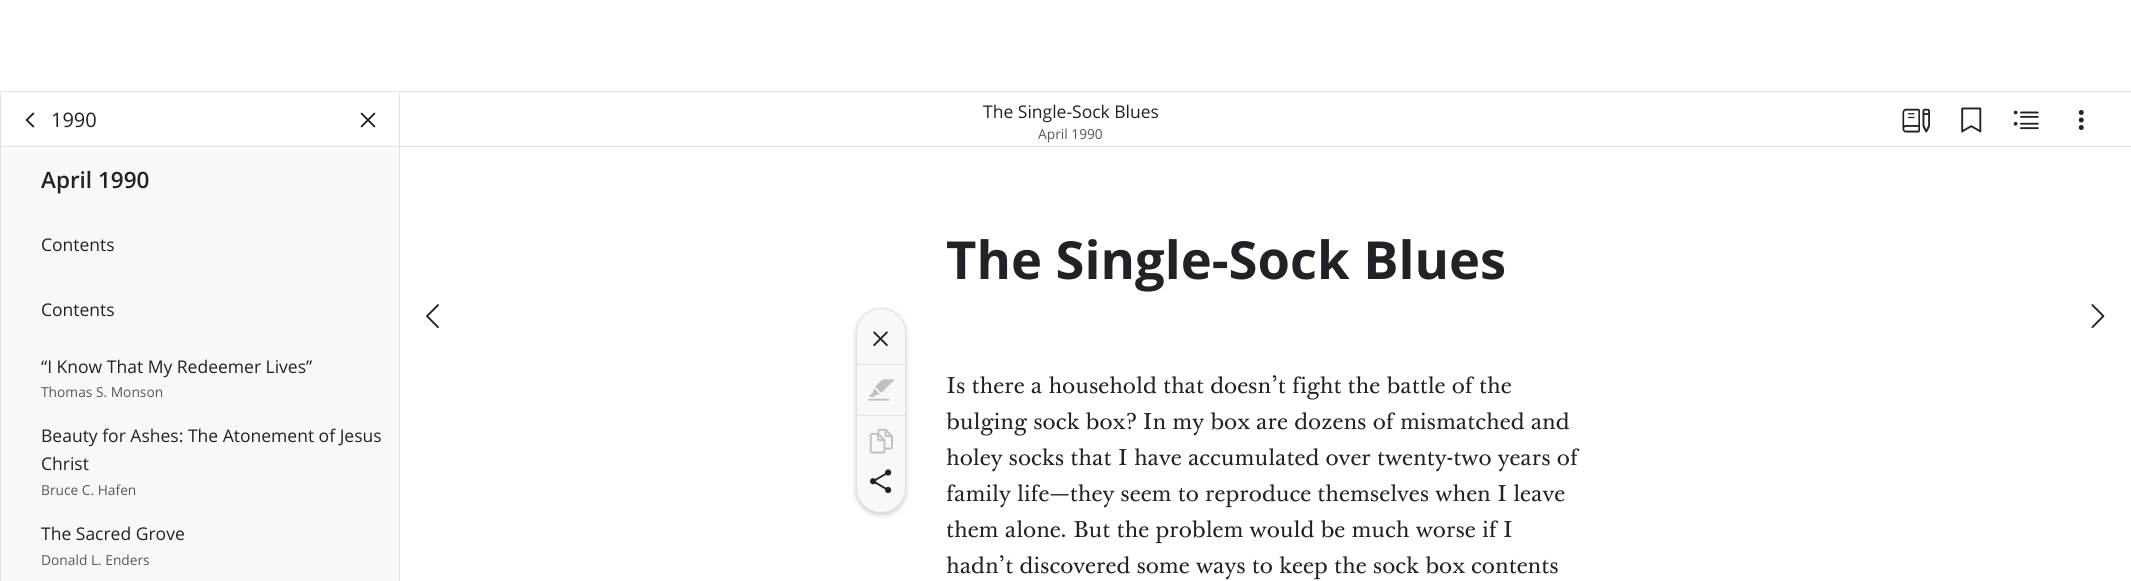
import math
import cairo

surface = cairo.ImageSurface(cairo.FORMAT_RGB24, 2131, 581)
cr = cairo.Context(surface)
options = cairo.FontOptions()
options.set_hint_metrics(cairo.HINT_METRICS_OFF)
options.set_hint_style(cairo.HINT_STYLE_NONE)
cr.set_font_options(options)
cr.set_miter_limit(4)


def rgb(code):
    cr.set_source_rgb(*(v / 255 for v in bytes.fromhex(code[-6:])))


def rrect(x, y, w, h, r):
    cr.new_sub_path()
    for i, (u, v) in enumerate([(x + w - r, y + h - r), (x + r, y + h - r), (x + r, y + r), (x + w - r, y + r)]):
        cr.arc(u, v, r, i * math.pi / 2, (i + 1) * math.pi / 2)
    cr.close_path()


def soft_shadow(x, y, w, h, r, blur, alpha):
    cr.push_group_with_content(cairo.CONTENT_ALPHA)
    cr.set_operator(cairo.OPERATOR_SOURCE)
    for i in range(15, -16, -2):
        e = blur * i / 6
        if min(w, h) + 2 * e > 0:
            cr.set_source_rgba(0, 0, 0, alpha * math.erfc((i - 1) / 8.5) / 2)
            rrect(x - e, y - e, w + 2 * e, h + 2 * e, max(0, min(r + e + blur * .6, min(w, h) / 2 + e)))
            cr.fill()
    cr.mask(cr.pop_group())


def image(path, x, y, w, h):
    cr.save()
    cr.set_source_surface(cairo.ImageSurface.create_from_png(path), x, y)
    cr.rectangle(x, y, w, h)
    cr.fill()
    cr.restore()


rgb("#ffffff")
cr.paint()
for x, y, w, h, color in [
    (0, 91, 2131, 1, "#e0e2e2"),
    (1, 148, 398, 433, "#f7f8f8"),
    (399, 93, 1, 488, "#e0e2e2"),
    (0, 93, 1, 488, "#e0e2e2"),
    (1, 146, 398, 1, "#e0e2e2"),
]:
    rgb(color)
    cr.rectangle(x, y, w, h)
    cr.fill()
image("img/1.png", 25, 112, 10, 16)
image("img/2.png", 360, 112, 16, 16)
cr.rectangle(400, 146, 1731, 1)
cr.fill()
image("img/3.png", 1902, 108, 28, 25)
image("img/4.png", 1961, 107, 21, 26)
image("img/5.png", 2013, 110, 26, 20)
image("img/6.png", 2078, 110, 6, 20)
image("img/7.png", 426, 304, 13, 24)
rgb("#000000")
soft_shadow(856, 310, 50, 205, 25, 2.5, 0.2)
rgb("#f7f8f8")
rrect(856.5, 308.5, 49, 204, 24.5)
cr.fill_preserve()
rgb("#e0e2e2")
cr.set_line_width(1)
cr.stroke()
image("img/8.png", 873, 331, 15, 16)
cr.rectangle(858, 364, 47, 1)
cr.fill()
image("img/9.png", 868, 379, 27, 22)
cr.rectangle(858, 415, 47, 1)
cr.fill()
image("img/10.png", 869, 428, 24, 26)
image("img/11.png", 870, 469, 22, 25)
image("img/12.png", 2091, 304, 14, 25)
cr.select_font_face("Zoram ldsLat")
cr.set_font_size(20)
rgb("#212225")
cr.move_to(51, 127)
cr.show_text("1990")
cr.select_font_face("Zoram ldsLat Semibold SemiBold")
cr.set_font_size(22.5)
cr.move_to(41, 188)
cr.show_text("April 1990")
cr.select_font_face("Zoram ldsLat")
cr.set_font_size(17.5)
for x, y, s in [
    (41, 251, "Contents"),
    (41, 316, "Contents"),
    (41, 373, "“I Know That My Redeemer Lives”"),
]:
    cr.move_to(x, y)
    cr.show_text(s)
cr.set_font_size(13.75)
rgb("#53575b")
cr.move_to(41, 397)
cr.show_text("Thomas S. Monson")
cr.set_font_size(17.5)
rgb("#212225")
cr.move_to(41, 442)
cr.show_text("Beauty for Ashes: The Atonement of Jesus")
cr.move_to(41, 470)
cr.show_text("Christ")
cr.set_font_size(13.75)
rgb("#53575b")
cr.move_to(41, 495)
cr.show_text("Bruce C. Hafen")
cr.set_font_size(17.5)
rgb("#212225")
cr.move_to(41, 540)
cr.show_text("The Sacred Grove")
cr.set_font_size(13.75)
rgb("#53575b")
cr.move_to(41, 565)
cr.show_text("Donald L. Enders")
cr.set_font_size(17.5)
rgb("#212225")
cr.move_to(983, 118)
cr.show_text("The Single-Sock Blues")
cr.set_font_size(13.75)
rgb("#53575b")
cr.move_to(1038, 139)
cr.show_text("April 1990")
cr.select_font_face("Zoram ldsLat", cairo.FONT_SLANT_NORMAL, cairo.FONT_WEIGHT_BOLD)
cr.set_font_size(52.5)
rgb("#212225")
cr.move_to(946, 279)
cr.show_text("The Single-Sock Blues")
cr.select_font_face("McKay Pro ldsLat")
cr.set_font_size(22.5)
for x, y, s in [
    (946, 393, "Is there a household that doesn’t fight the battle of the"),
    (946, 429, "bulging sock box? In my box are dozens of mismatched and"),
    (946, 465, "holey socks that I have accumulated over twenty-two years of"),
    (946, 501, "family life—they seem to reproduce themselves when I leave"),
    (946, 537, "them alone. But the problem would be much worse if I"),
    (946, 573, "hadn’t discovered some ways to keep the sock box contents"),
]:
    cr.move_to(x, y)
    cr.show_text(s)
surface.write_to_png("page.png")
